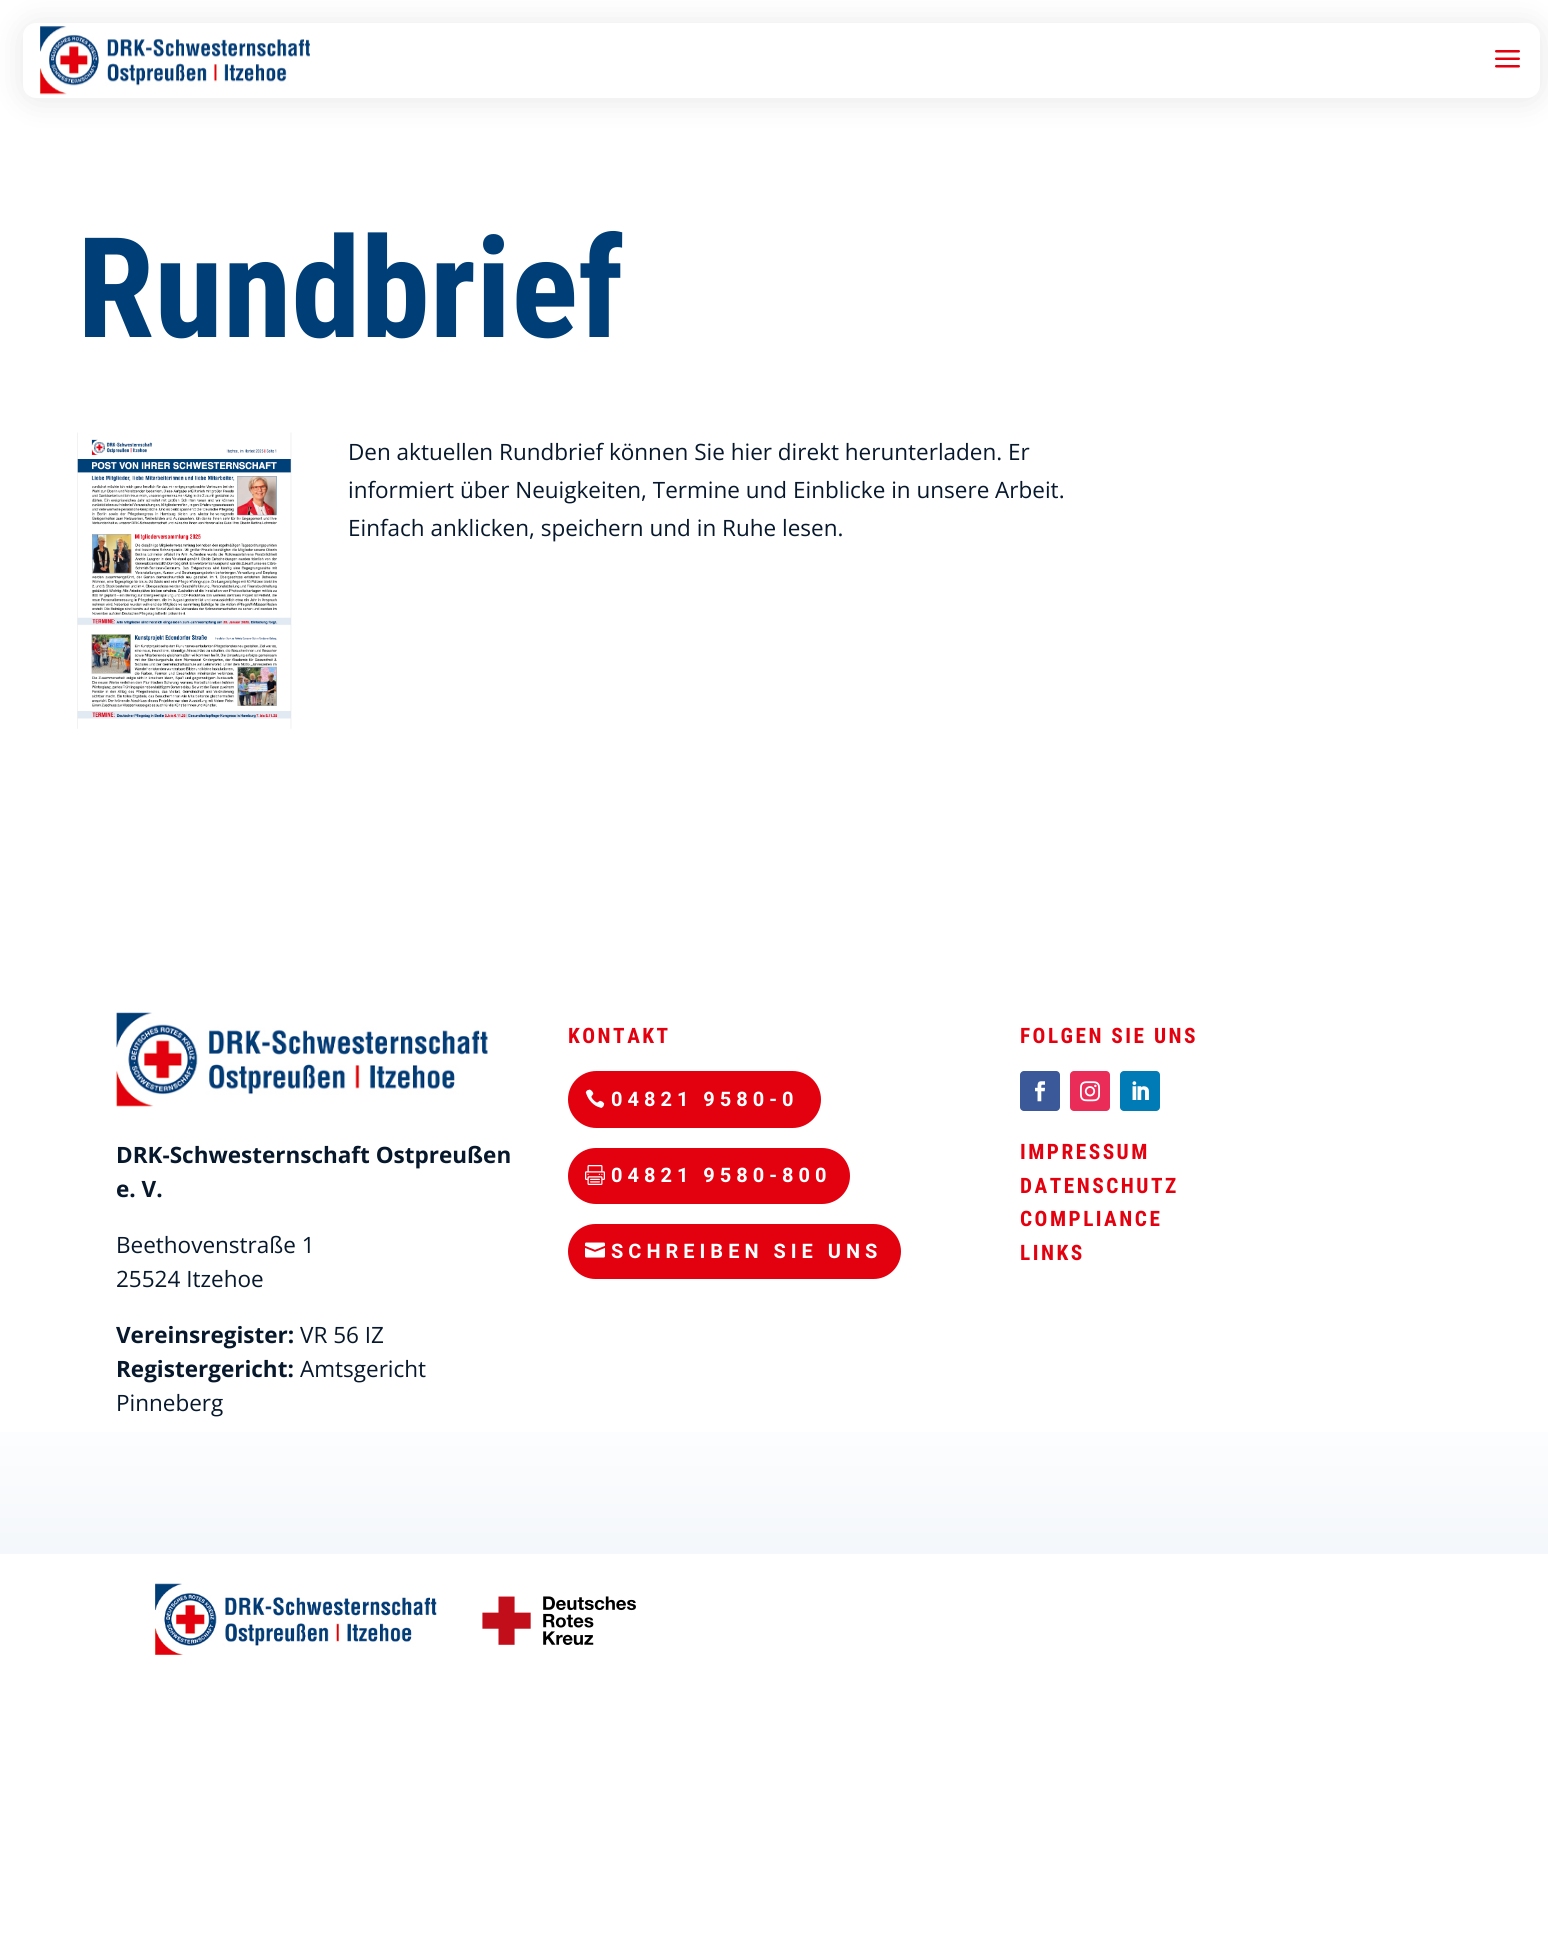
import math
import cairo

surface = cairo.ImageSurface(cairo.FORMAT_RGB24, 1548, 1943)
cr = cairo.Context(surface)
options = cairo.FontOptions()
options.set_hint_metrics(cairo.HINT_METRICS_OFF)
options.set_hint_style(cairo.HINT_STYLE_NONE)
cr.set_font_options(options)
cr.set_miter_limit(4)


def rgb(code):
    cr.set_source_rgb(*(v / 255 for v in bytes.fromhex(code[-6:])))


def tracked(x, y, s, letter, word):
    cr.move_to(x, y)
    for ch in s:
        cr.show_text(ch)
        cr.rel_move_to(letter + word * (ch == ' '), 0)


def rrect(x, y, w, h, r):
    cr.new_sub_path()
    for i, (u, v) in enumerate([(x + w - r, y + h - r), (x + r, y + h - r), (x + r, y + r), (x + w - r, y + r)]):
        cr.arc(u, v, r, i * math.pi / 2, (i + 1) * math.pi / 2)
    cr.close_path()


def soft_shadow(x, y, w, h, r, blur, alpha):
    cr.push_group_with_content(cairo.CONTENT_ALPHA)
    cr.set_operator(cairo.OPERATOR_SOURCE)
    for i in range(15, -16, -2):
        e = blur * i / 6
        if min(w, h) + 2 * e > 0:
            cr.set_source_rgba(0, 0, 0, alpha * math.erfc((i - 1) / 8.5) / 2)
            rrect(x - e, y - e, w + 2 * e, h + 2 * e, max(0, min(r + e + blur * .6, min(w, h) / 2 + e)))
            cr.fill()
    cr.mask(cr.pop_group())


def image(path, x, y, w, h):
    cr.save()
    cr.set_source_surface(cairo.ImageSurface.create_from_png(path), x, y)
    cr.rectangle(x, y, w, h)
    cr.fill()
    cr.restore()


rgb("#ffffff")
cr.paint()
rgb("#000000")
soft_shadow(23, 25, 1517, 75, 13, 15.5, 0.1)
rgb("#ffffff")
rrect(23, 23, 1517, 75, 13)
cr.fill()
image("img/1.png", 40, 26, 270, 69)
image("img/2.png", 1495, 50, 25, 18)
image("img/3.png", 77, 432, 215, 297)
gradient = cairo.LinearGradient(774, 920, 774, 1554)
gradient.add_color_stop_rgba(0.75, 1, 1, 1, 1)
gradient.add_color_stop_rgba(1, 0.957, 0.969, 0.984, 1)
cr.set_source(gradient)
cr.rectangle(0, 1432, 1548, 122)
cr.fill()
image("img/4.png", 116, 1012, 372, 95)
rgb("#e3000f")
rrect(570.5, 1073.5, 248, 52, 26)
cr.fill_preserve()
cr.set_line_width(5)
cr.stroke()
image("img/5.png", 585, 1089, 20, 19)
rrect(570.5, 1150.5, 277, 51, 25.5)
cr.fill_preserve()
cr.stroke()
image("img/6.png", 585, 1165, 20, 20)
rrect(570.5, 1226.5, 328, 50, 25)
cr.fill_preserve()
cr.stroke()
image("img/7.png", 585, 1242, 20, 16)
rgb("#3b5998")
rrect(1020, 1071, 40, 40, 4)
cr.fill()
image("img/8.png", 1035, 1081, 10, 21)
rgb("#ea2c59")
rrect(1070, 1071, 40, 40, 4)
cr.fill()
image("img/9.png", 1080, 1081, 20, 21)
rgb("#007bb6")
rrect(1120, 1071, 40, 40, 4)
cr.fill()
image("img/10.png", 1132, 1081, 17, 19)
image("img/11.png", 155, 1583, 282, 72)
image("img/12.png", 482, 1596, 154, 49)
cr.select_font_face("Roboto Condensed", cairo.FONT_SLANT_NORMAL, cairo.FONT_WEIGHT_BOLD)
cr.set_font_size(139.5)
rgb("#003e77")
cr.move_to(77, 337)
cr.show_text("Rundbrief")
cr.select_font_face("Open Sans")
cr.set_font_size(22.5)
rgb("#08182c")
for x, y, s in [
    (348, 460, "Den aktuellen Rundbrief können Sie hier direkt herunterladen. Er"),
    (348, 498, "informiert über Neuigkeiten, Termine und Einblicke in unsere Arbeit."),
    (348, 536, "Einfach anklicken, speichern und in Ruhe lesen."),
]:
    cr.move_to(x, y)
    cr.show_text(s)
cr.select_font_face("Open Sans", cairo.FONT_SLANT_NORMAL, cairo.FONT_WEIGHT_BOLD)
cr.move_to(116, 1163)
cr.show_text("DRK-Schwesternschaft Ostpreußen")
cr.move_to(116, 1197)
cr.show_text("e. V.")
cr.select_font_face("Open Sans")
cr.move_to(116, 1253)
cr.show_text("Beethovenstraße 1")
cr.move_to(116, 1287)
cr.show_text("25524 Itzehoe")
cr.select_font_face("Open Sans", cairo.FONT_SLANT_NORMAL, cairo.FONT_WEIGHT_BOLD)
cr.move_to(116, 1343)
cr.show_text("Vereinsregister:")
cr.select_font_face("Open Sans")
cr.move_to(300, 1343)
cr.show_text("VR 56 IZ")
cr.select_font_face("Open Sans", cairo.FONT_SLANT_NORMAL, cairo.FONT_WEIGHT_BOLD)
cr.move_to(116, 1377)
cr.show_text("Registergericht:")
cr.select_font_face("Open Sans")
cr.move_to(300, 1377)
cr.show_text("Amtsgericht")
cr.move_to(116, 1411)
cr.show_text("Pinneberg")
cr.select_font_face("Roboto Condensed", cairo.FONT_SLANT_NORMAL, cairo.FONT_WEIGHT_BOLD)
cr.set_font_size(21.25)
rgb("#e3000f")
tracked(568, 1043, "KONTAKT", 2.5, 0)
cr.select_font_face("Roboto", cairo.FONT_SLANT_NORMAL, cairo.FONT_WEIGHT_BOLD)
cr.set_font_size(20)
rgb("#ffffff")
for x, y, s in [
    (611, 1106, "04821 9580-0"),
    (611, 1182, "04821 9580-800"),
    (611, 1258, "SCHREIBEN SIE UNS"),
]:
    tracked(x, y, s, 5, 0)
cr.select_font_face("Roboto Condensed", cairo.FONT_SLANT_NORMAL, cairo.FONT_WEIGHT_BOLD)
cr.set_font_size(21.25)
rgb("#e3000f")
for x, y, s in [
    (1020, 1043, "FOLGEN SIE UNS"),
    (1020, 1159, "IMPRESSUM"),
    (1020, 1193, "DATENSCHUTZ"),
    (1020, 1226, "COMPLIANCE"),
    (1020, 1260, "LINKS"),
]:
    tracked(x, y, s, 2.5, 0)
surface.write_to_png("page.png")
